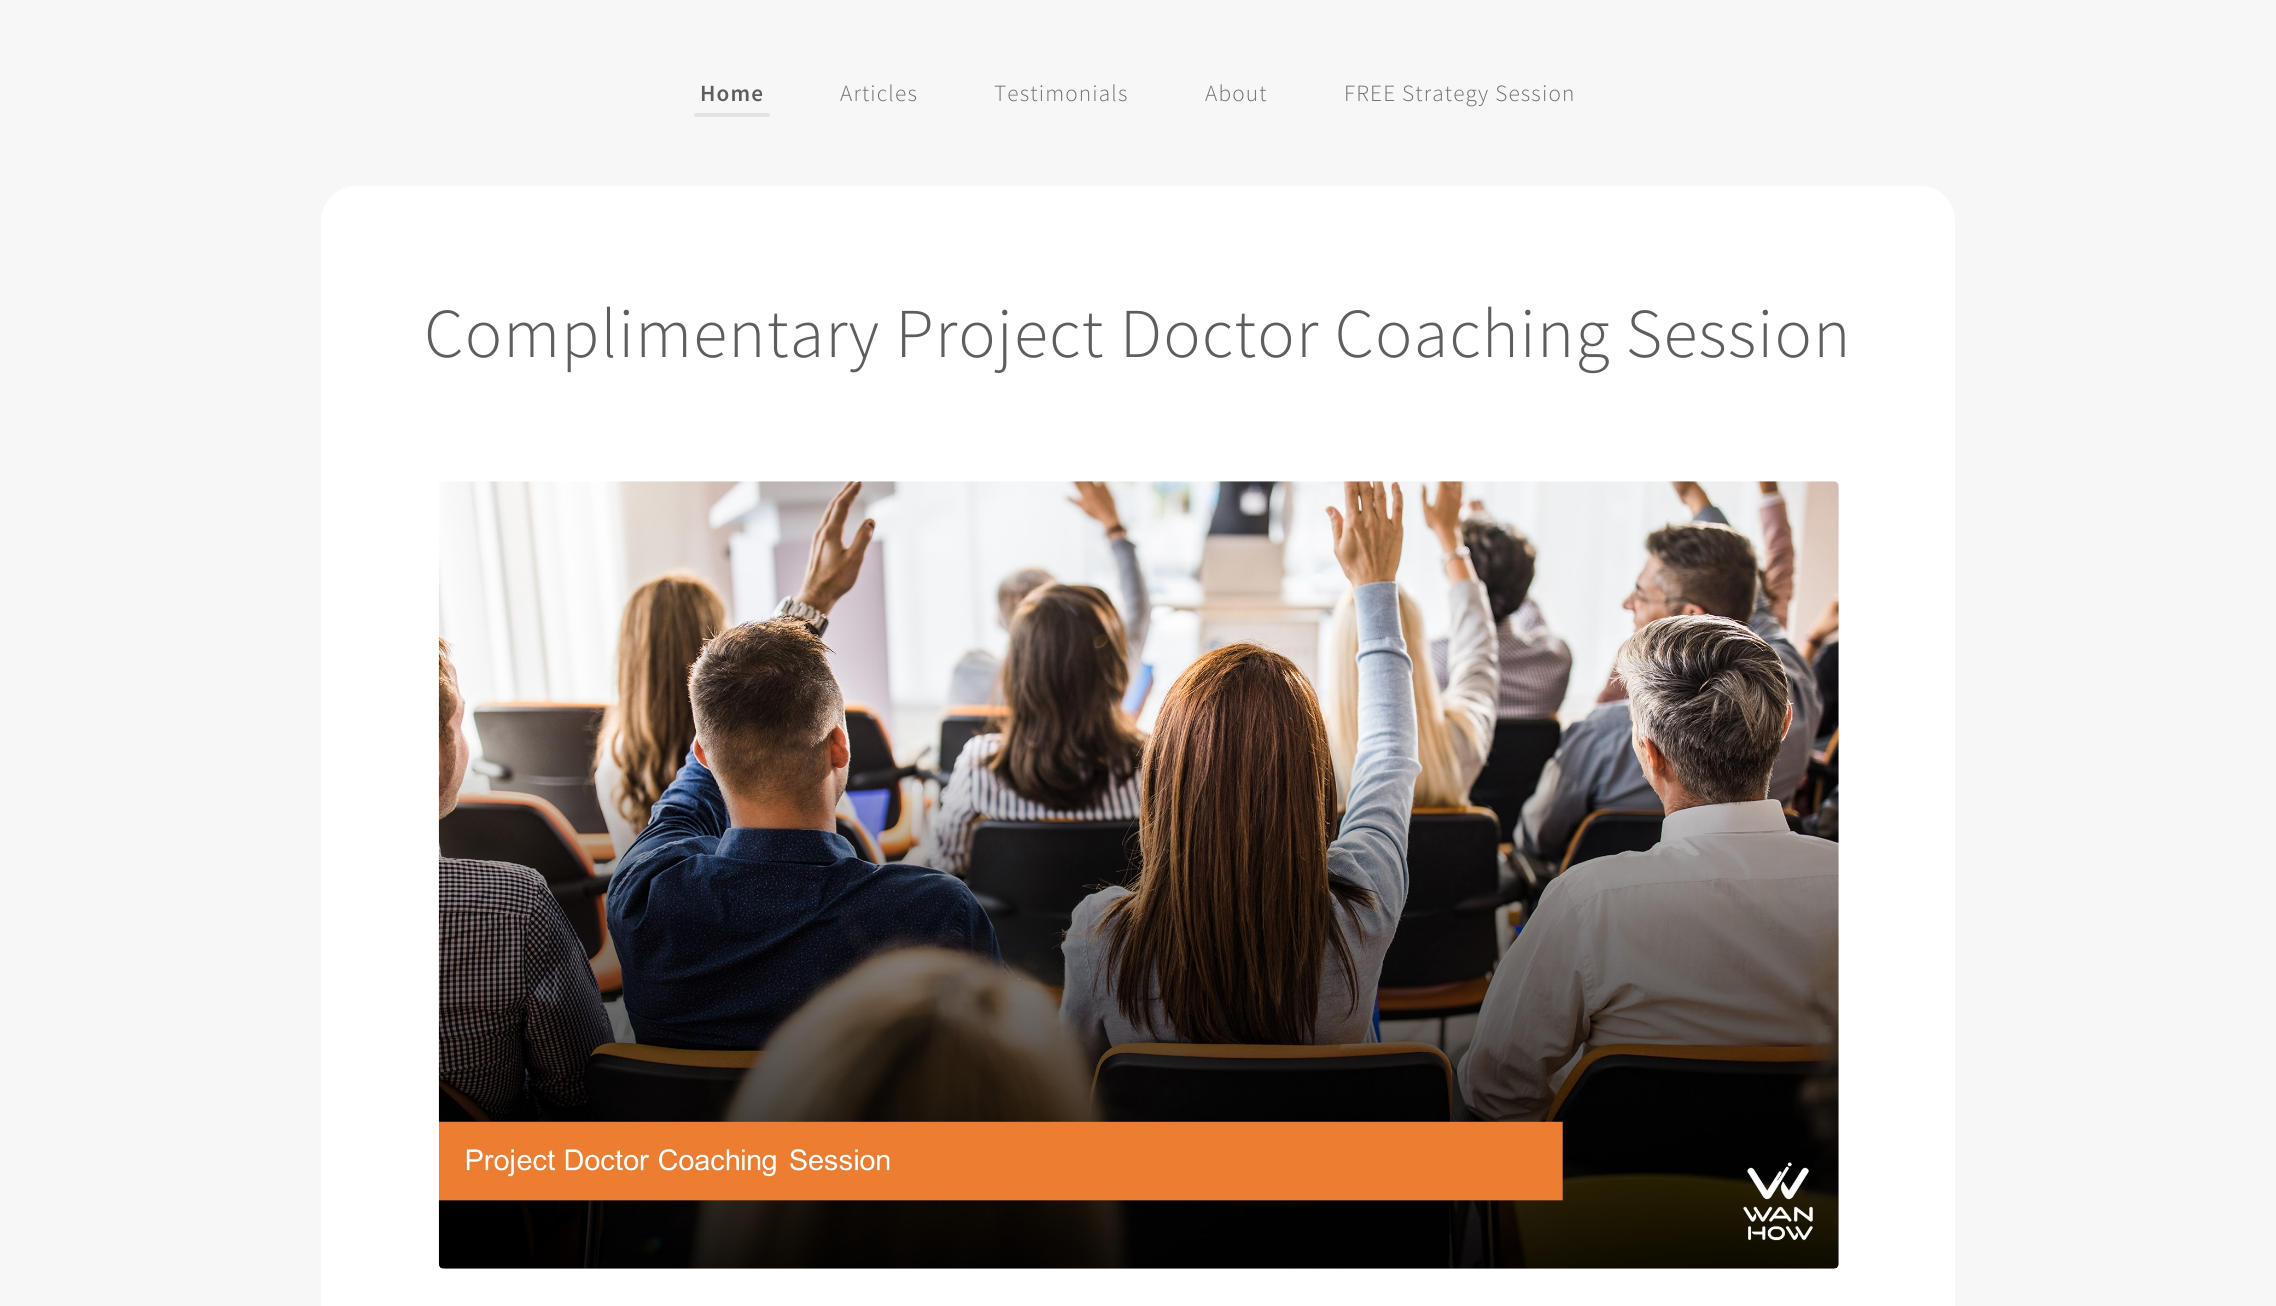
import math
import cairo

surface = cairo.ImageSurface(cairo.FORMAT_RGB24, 2276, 1306)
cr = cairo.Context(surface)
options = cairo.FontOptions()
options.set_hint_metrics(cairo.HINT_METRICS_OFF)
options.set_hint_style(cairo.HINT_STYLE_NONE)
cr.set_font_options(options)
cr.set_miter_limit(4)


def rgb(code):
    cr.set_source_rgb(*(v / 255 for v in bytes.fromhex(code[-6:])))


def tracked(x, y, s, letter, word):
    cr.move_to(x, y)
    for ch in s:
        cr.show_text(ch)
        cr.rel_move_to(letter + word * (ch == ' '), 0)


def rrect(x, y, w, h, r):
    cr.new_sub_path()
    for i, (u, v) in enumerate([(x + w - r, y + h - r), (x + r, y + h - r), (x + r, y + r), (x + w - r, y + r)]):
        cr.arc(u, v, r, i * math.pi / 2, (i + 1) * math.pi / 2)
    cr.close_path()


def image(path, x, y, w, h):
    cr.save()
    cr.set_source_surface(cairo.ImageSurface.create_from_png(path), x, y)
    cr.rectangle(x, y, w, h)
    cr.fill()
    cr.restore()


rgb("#f7f7f7")
cr.paint()
rgb("#e3e3e3")
rrect(694, 113, 76, 4, 2)
cr.fill()
rgb("#ffffff")
rrect(321, 186, 1634, 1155, 35)
cr.fill()
image("img/1.png", 438, 481, 1401, 788)
cr.select_font_face("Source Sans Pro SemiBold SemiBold")
cr.set_font_size(23.25)
rgb("#5e5e5e")
tracked(700, 101, "Home", 1.15, 0)
cr.select_font_face("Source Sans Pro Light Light")
rgb("#6e6e6e")
for x, y, s in [
    (840, 101, "Articles"),
    (994, 101, "Testimonials"),
    (1205, 101, "About"),
    (1344, 101, "FREE Strategy Session"),
]:
    tracked(x, y, s, 1.15, 0)
cr.set_font_size(70)
rgb("#5e5e5e")
tracked(424, 357, "Complimentary Project Doctor Coaching Session", 1.15, 0)
surface.write_to_png("page.png")
